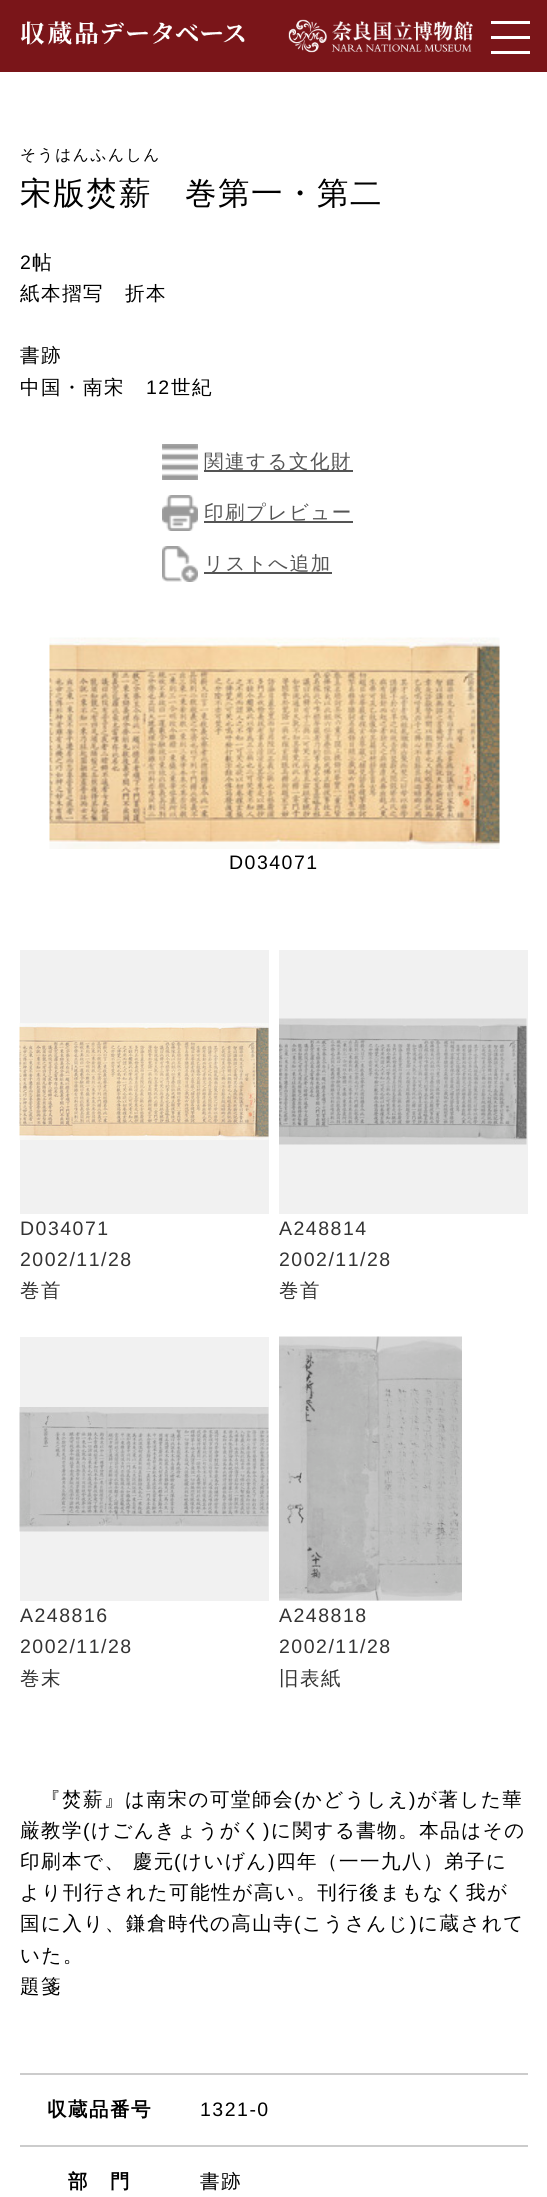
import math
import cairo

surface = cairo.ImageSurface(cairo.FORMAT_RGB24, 547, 2197)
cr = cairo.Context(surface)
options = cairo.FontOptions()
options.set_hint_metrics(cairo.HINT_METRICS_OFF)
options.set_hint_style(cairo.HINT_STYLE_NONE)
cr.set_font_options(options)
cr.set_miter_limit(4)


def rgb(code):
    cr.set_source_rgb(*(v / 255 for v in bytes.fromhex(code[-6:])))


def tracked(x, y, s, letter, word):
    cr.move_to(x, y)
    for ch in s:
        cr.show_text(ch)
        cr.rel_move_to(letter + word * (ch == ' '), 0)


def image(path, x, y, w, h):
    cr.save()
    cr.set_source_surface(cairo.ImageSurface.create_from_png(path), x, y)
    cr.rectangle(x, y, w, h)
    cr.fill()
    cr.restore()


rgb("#ffffff")
cr.paint()
rgb("#7a1519")
cr.rectangle(0, 0, 547, 72)
cr.fill()
image("img/1.png", 20, 21, 225, 24)
image("img/2.png", 288, 19, 185, 34)
for x, y, w, h, color in [
    (491, 21, 39, 3, "#ffffff"),
    (491, 36, 39, 3, "#ffffff"),
    (491, 51, 39, 3, "#ffffff"),
]:
    rgb(color)
    cr.rectangle(x, y, w, h)
    cr.fill()
image("img/3.png", 162, 444, 36, 36)
rgb("#545454")
cr.rectangle(204, 470, 149, 2)
cr.fill()
image("img/4.png", 162, 495, 36, 36)
cr.rectangle(204, 521, 149, 2)
cr.fill()
image("img/5.png", 162, 546, 36, 36)
cr.rectangle(204, 572, 128, 2)
cr.fill()
image("img/6.png", 49, 637, 451, 212)
rgb("#f1f1f1")
cr.rectangle(20, 950, 249, 264)
cr.fill()
image("img/7.png", 19, 1023, 250, 117)
cr.rectangle(279, 950, 249, 264)
cr.fill()
image("img/8.png", 279, 1018, 248, 127)
cr.rectangle(20, 1337, 249, 264)
cr.fill()
image("img/9.png", 19, 1407, 250, 125)
cr.rectangle(279, 1337, 183, 264)
cr.fill()
image("img/10.png", 279, 1336, 183, 265)
rgb("#cccccc")
cr.rectangle(20, 2073, 508, 2)
cr.fill()
cr.rectangle(20, 2145, 508, 2)
cr.fill()
cr.select_font_face("WenQuanYi Zen Hei Medium")
cr.set_font_size(15.75)
rgb("#000000")
tracked(20, 160, "そうはんふんしん", 1.5, 0)
cr.set_font_size(31.5)
tracked(20, 204, "宋版焚薪　巻第一・第二", 1.5, 0)
cr.select_font_face("Liberation Sans")
cr.set_font_size(19.5)
tracked(20, 269, "2", 1.5, 0)
cr.select_font_face("WenQuanYi Zen Hei Medium")
for x, y, s in [
    (32, 269, "帖"),
    (20, 300, "紙本摺写　折本"),
    (20, 362, "書跡"),
    (20, 394, "中国・南宋"),
]:
    tracked(x, y, s, 1.5, 0)
cr.select_font_face("Liberation Sans")
tracked(146, 394, "12", 1.5, 0)
cr.select_font_face("WenQuanYi Zen Hei Medium")
tracked(171, 394, "世紀", 1.5, 0)
rgb("#545454")
for x, y, s in [
    (204, 468, "関連する文化財"),
    (204, 519, "印刷プレビュー"),
    (204, 570, "リストへ追加"),
]:
    tracked(x, y, s, 1.5, 0)
cr.select_font_face("Liberation Sans")
rgb("#000000")
tracked(229, 869, "D034071", 1.5, 0)
rgb("#333333")
tracked(20, 1235, "D034071", 1.5, 0)
tracked(20, 1266, "2002/11/28", 1.5, 0)
cr.select_font_face("WenQuanYi Zen Hei Medium")
tracked(20, 1297, "巻首", 1.5, 0)
cr.select_font_face("Liberation Sans")
tracked(279, 1235, "A248814", 1.5, 0)
tracked(279, 1266, "2002/11/28", 1.5, 0)
cr.select_font_face("WenQuanYi Zen Hei Medium")
tracked(279, 1297, "巻首", 1.5, 0)
cr.select_font_face("Liberation Sans")
tracked(20, 1622, "A248816", 1.5, 0)
tracked(20, 1653, "2002/11/28", 1.5, 0)
cr.select_font_face("WenQuanYi Zen Hei Medium")
tracked(20, 1685, "巻末", 1.5, 0)
cr.select_font_face("Liberation Sans")
tracked(279, 1622, "A248818", 1.5, 0)
tracked(279, 1653, "2002/11/28", 1.5, 0)
cr.select_font_face("WenQuanYi Zen Hei Medium")
tracked(279, 1685, "旧表紙", 1.5, 0)
rgb("#000000")
tracked(41, 1806, "『焚薪』は南宋の可堂師会", 1.5, 0)
cr.select_font_face("Liberation Sans")
tracked(294, 1806, "(", 1.5, 0)
cr.select_font_face("WenQuanYi Zen Hei Medium")
tracked(302, 1806, "かどうしえ", 1.5, 0)
cr.select_font_face("Liberation Sans")
tracked(409, 1806, ")", 1.5, 0)
cr.select_font_face("WenQuanYi Zen Hei Medium")
tracked(417, 1806, "が著した華", 1.5, 0)
tracked(20, 1837, "厳教学", 1.5, 0)
cr.select_font_face("Liberation Sans")
tracked(83, 1837, "(", 1.5, 0)
cr.select_font_face("WenQuanYi Zen Hei Medium")
tracked(91, 1837, "けごんきょうがく", 1.5, 0)
cr.select_font_face("Liberation Sans")
tracked(263, 1837, ")", 1.5, 0)
cr.select_font_face("WenQuanYi Zen Hei Medium")
tracked(271, 1837, "に関する書物。本品はその", 1.5, 0)
tracked(20, 1868, "印刷本で、 慶元", 1.5, 0)
cr.select_font_face("Liberation Sans")
tracked(174, 1868, "(", 1.5, 0)
cr.select_font_face("WenQuanYi Zen Hei Medium")
tracked(182, 1868, "けいげん", 1.5, 0)
cr.select_font_face("Liberation Sans")
tracked(268, 1868, ")", 1.5, 0)
cr.select_font_face("WenQuanYi Zen Hei Medium")
for x, y, s in [
    (276, 1868, "四年（一一九八）弟子に"),
    (20, 1899, "より刊行された可能性が高い。刊行後まもなく我が"),
    (20, 1930, "国に入り、鎌倉時代の高山寺"),
]:
    tracked(x, y, s, 1.5, 0)
cr.select_font_face("Liberation Sans")
tracked(294, 1930, "(", 1.5, 0)
cr.select_font_face("WenQuanYi Zen Hei Medium")
tracked(302, 1930, "こうさんじ", 1.5, 0)
cr.select_font_face("Liberation Sans")
tracked(410, 1930, ")", 1.5, 0)
cr.select_font_face("WenQuanYi Zen Hei Medium")
for x, y, s in [
    (418, 1930, "に蔵されて"),
    (20, 1962, "いた。"),
    (20, 1993, "題箋"),
]:
    tracked(x, y, s, 1.5, 0)
cr.select_font_face("WenQuanYi Zen Hei", cairo.FONT_SLANT_NORMAL, cairo.FONT_WEIGHT_BOLD)
tracked(47, 2116, "収蔵品番号", 1.5, 0)
cr.select_font_face("Liberation Sans")
tracked(200, 2116, "1321-0", 1.5, 0)
cr.select_font_face("WenQuanYi Zen Hei", cairo.FONT_SLANT_NORMAL, cairo.FONT_WEIGHT_BOLD)
tracked(68, 2188, "部　門", 1.5, 0)
cr.select_font_face("WenQuanYi Zen Hei Medium")
tracked(200, 2188, "書跡", 1.5, 0)
surface.write_to_png("page.png")
